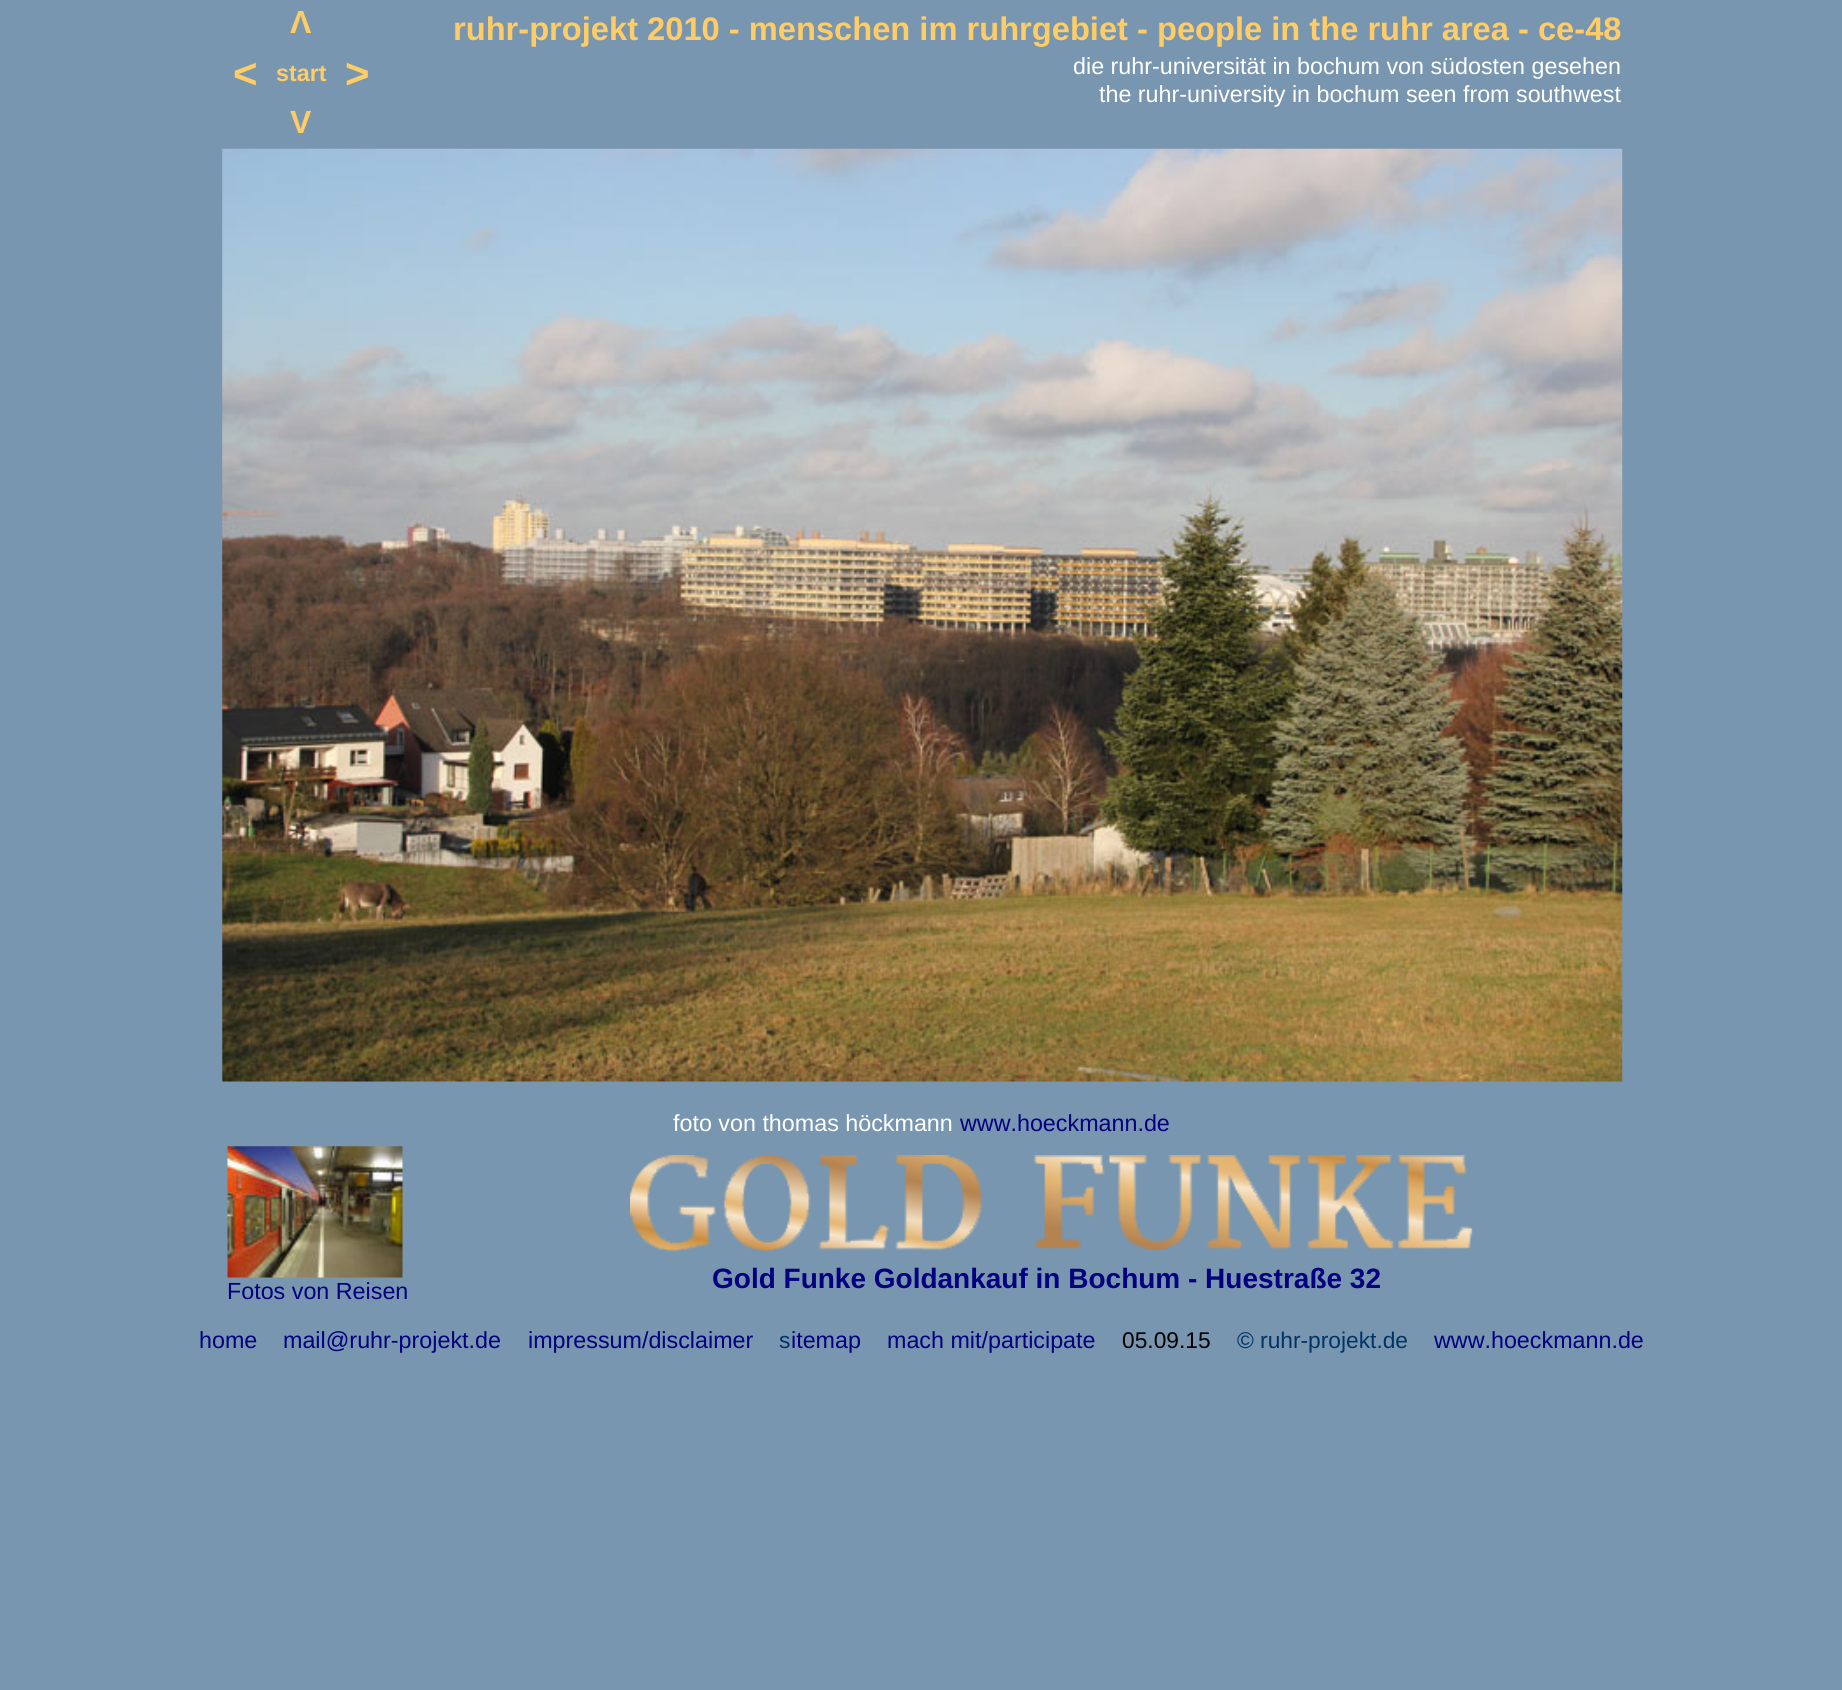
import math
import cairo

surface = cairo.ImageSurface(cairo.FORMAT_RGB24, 1842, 1690)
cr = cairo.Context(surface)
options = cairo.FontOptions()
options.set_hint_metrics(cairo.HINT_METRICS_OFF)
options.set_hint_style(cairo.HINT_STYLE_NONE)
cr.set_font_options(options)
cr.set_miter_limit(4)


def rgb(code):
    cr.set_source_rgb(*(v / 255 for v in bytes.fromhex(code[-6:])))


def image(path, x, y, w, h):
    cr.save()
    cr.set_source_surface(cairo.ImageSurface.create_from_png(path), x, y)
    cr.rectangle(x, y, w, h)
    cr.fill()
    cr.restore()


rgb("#7896af")
cr.paint()
image("img/1.png", 222, 148, 1401, 934)
image("img/2.png", 630, 1155, 843, 97)
image("img/3.png", 227, 1146, 176, 132)
cr.select_font_face("Liberation Sans", cairo.FONT_SLANT_NORMAL, cairo.FONT_WEIGHT_BOLD)
cr.set_font_size(32)
rgb("#ffcc66")
cr.move_to(290, 33)
cr.show_text("Λ")
cr.set_font_size(32.65)
cr.move_to(453, 40)
cr.show_text("ruhr-projekt 2010 - menschen im ruhrgebiet - people in the ruhr area - ce-48")
cr.select_font_face("Liberation Sans")
cr.set_font_size(23.3)
rgb("#ffffff")
cr.move_to(1073, 74)
cr.show_text("die ruhr-universität in bochum von südosten gesehen")
cr.move_to(1099, 102)
cr.show_text("the ruhr-university in bochum seen from southwest")
cr.select_font_face("Liberation Sans", cairo.FONT_SLANT_NORMAL, cairo.FONT_WEIGHT_BOLD)
cr.set_font_size(42)
rgb("#ffcc66")
cr.move_to(233, 88)
cr.show_text("<")
cr.set_font_size(23.3)
cr.move_to(276, 81)
cr.show_text("start")
cr.set_font_size(42)
cr.move_to(345, 88)
cr.show_text(">")
cr.set_font_size(32)
cr.move_to(290, 133)
cr.show_text("V")
cr.select_font_face("Liberation Sans")
cr.set_font_size(23.3)
rgb("#ffffff")
cr.move_to(673, 1131)
cr.show_text("foto von thomas höckmann")
rgb("#000080")
cr.move_to(960, 1131)
cr.show_text("www.hoeckmann.de")
cr.select_font_face("Liberation Sans", cairo.FONT_SLANT_NORMAL, cairo.FONT_WEIGHT_BOLD)
cr.set_font_size(28)
cr.move_to(712, 1288)
cr.show_text("Gold Funke Goldankauf in Bochum - Huestraße 32")
cr.select_font_face("Liberation Sans")
cr.set_font_size(23.3)
for x, y, s in [
    (227, 1299, "Fotos von Reisen"),
    (199, 1348, "home"),
    (283, 1348, "mail@ruhr-projekt.de"),
    (528, 1348, "impressum/disclaimer"),
]:
    cr.move_to(x, y)
    cr.show_text(s)
cr.set_font_size(22.75)
rgb("#003366")
cr.move_to(779, 1348)
cr.show_text("s")
cr.set_font_size(23.3)
rgb("#000080")
cr.move_to(791, 1348)
cr.show_text("itemap")
cr.move_to(887, 1348)
cr.show_text("mach mit/participate")
cr.set_font_size(22.75)
rgb("#000000")
cr.move_to(1122, 1348)
cr.show_text("05.09.15")
rgb("#003366")
cr.move_to(1237, 1348)
cr.show_text("© ruhr-projekt.de")
cr.set_font_size(23.3)
rgb("#000080")
cr.move_to(1434, 1348)
cr.show_text("www.hoeckmann.de")
surface.write_to_png("page.png")
